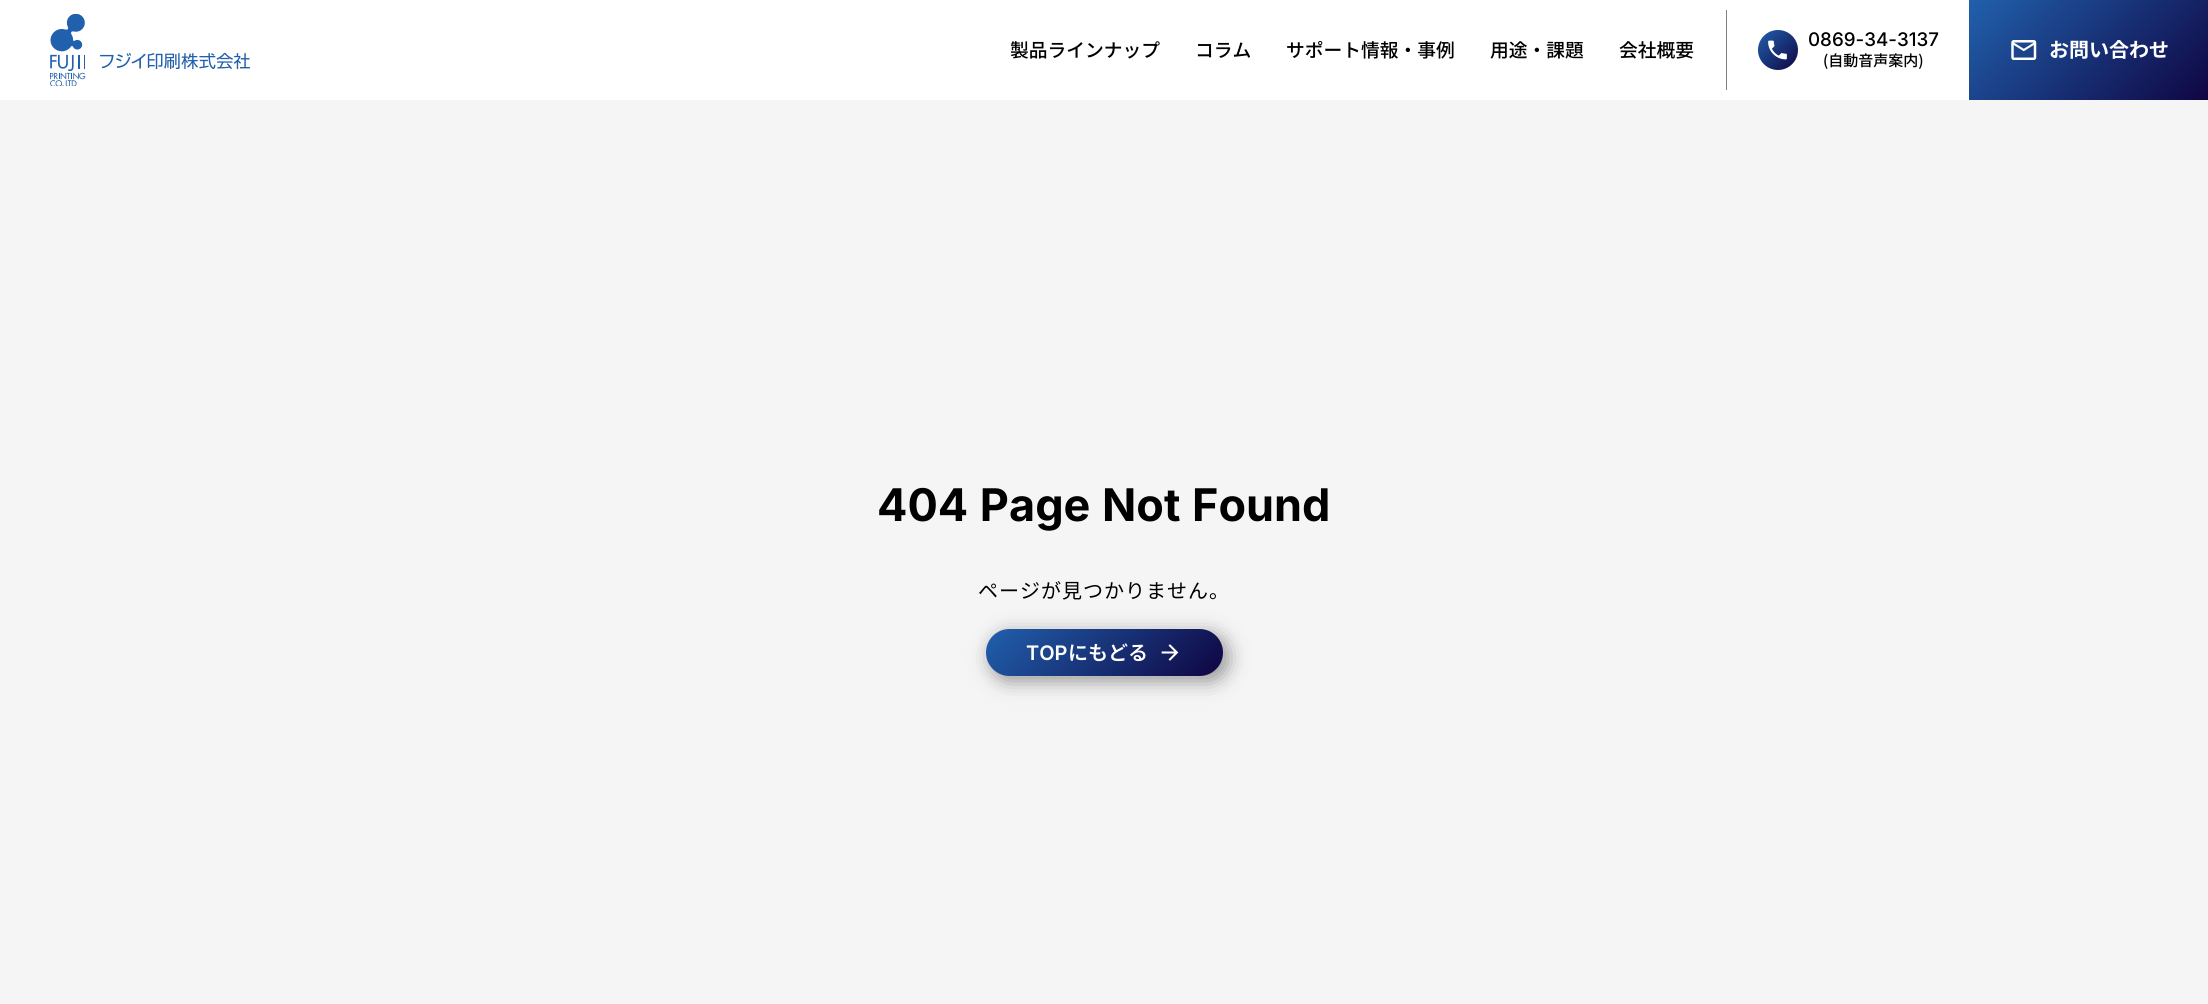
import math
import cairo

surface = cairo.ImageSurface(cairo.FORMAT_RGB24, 2208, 1004)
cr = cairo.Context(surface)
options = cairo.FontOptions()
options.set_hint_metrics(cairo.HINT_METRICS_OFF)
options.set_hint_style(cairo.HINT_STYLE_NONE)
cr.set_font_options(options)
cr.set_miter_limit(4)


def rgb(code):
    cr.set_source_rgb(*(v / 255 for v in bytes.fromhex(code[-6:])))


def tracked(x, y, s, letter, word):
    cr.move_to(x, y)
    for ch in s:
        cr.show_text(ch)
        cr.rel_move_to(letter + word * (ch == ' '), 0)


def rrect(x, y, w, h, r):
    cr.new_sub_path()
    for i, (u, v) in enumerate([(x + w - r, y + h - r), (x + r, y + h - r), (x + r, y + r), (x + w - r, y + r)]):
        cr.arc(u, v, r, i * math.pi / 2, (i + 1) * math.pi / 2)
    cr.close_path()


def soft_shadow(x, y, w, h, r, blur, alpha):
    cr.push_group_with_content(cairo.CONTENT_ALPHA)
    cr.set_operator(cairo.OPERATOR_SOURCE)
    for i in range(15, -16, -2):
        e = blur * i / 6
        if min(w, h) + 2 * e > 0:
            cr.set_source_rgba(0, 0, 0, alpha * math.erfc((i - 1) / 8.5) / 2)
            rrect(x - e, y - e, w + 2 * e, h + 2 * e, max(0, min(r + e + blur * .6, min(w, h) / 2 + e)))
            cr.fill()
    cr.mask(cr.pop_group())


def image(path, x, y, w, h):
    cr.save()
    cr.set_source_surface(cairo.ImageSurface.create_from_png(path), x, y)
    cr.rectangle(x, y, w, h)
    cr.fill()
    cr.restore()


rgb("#f5f5f5")
cr.paint()
rgb("#ffffff")
cr.rectangle(0, 0, 1969, 100)
cr.fill()
image("img/1.png", 50, 14, 200, 72)
rgb("#808080")
cr.rectangle(1726, 10, 1, 80)
cr.fill()
gradient = cairo.LinearGradient(1758, 30, 1798, 70)
gradient.add_color_stop_rgba(0, 0.129, 0.376, 0.678, 1)
gradient.add_color_stop_rgba(1, 0.059, 0.02, 0.259, 1)
cr.set_source(gradient)
cr.arc(1778, 50, 20, 0, 2 * math.pi)
cr.fill()
image("img/2.png", 1768, 40, 19, 20)
gradient = cairo.LinearGradient(2004, -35, 2174, 135)
gradient.add_color_stop_rgba(0, 0.129, 0.376, 0.678, 1)
gradient.add_color_stop_rgba(1, 0.059, 0.02, 0.259, 1)
cr.set_source(gradient)
cr.rectangle(1969, 0, 239, 100)
cr.fill()
image("img/3.png", 2011, 40, 26, 20)
rgb("#000000")
soft_shadow(991, 634, 237, 47, 23.5, 10, 0.4)
gradient = cairo.LinearGradient(1033, 582, 1175, 723)
gradient.add_color_stop_rgba(0, 0.129, 0.376, 0.678, 1)
gradient.add_color_stop_rgba(1, 0.059, 0.02, 0.259, 1)
cr.set_source(gradient)
rrect(986, 629, 237, 47, 23.5)
cr.fill()
image("img/4.png", 1161, 644, 18, 17)
cr.select_font_face("Noto Sans JP Medium")
cr.set_font_size(18.75)
rgb("#000000")
for x, y, s in [
    (1010, 57, "製品ラインナップ"),
    (1195, 57, "コラム"),
    (1286, 57, "サポート情報・事例"),
    (1490, 57, "用途・課題"),
    (1619, 57, "会社概要"),
]:
    cr.move_to(x, y)
    cr.show_text(s)
cr.select_font_face("Inter Medium")
cr.move_to(1808, 46)
cr.show_text("0869-34-3137")
cr.select_font_face("Noto Sans JP Medium")
cr.set_font_size(15)
cr.move_to(1823, 66)
cr.show_text("(自動音声案内)")
cr.select_font_face("Noto Sans JP", cairo.FONT_SLANT_NORMAL, cairo.FONT_WEIGHT_BOLD)
cr.set_font_size(20)
rgb("#ffffff")
cr.move_to(2049, 57)
cr.show_text("お問い合わせ")
cr.select_font_face("Inter", cairo.FONT_SLANT_NORMAL, cairo.FONT_WEIGHT_BOLD)
cr.set_font_size(45)
rgb("#000000")
tracked(877, 521, "404 Page Not Found", 0, 1)
cr.select_font_face("Noto Sans JP")
cr.set_font_size(20)
tracked(978, 598, "ページが見つかりません。", 1, 0)
cr.select_font_face("Inter SemiBold")
rgb("#ffffff")
cr.move_to(1026, 660)
cr.show_text("TOP")
cr.select_font_face("Noto Sans JP SemiBold")
cr.move_to(1068, 660)
cr.show_text("にもどる")
surface.write_to_png("page.png")
